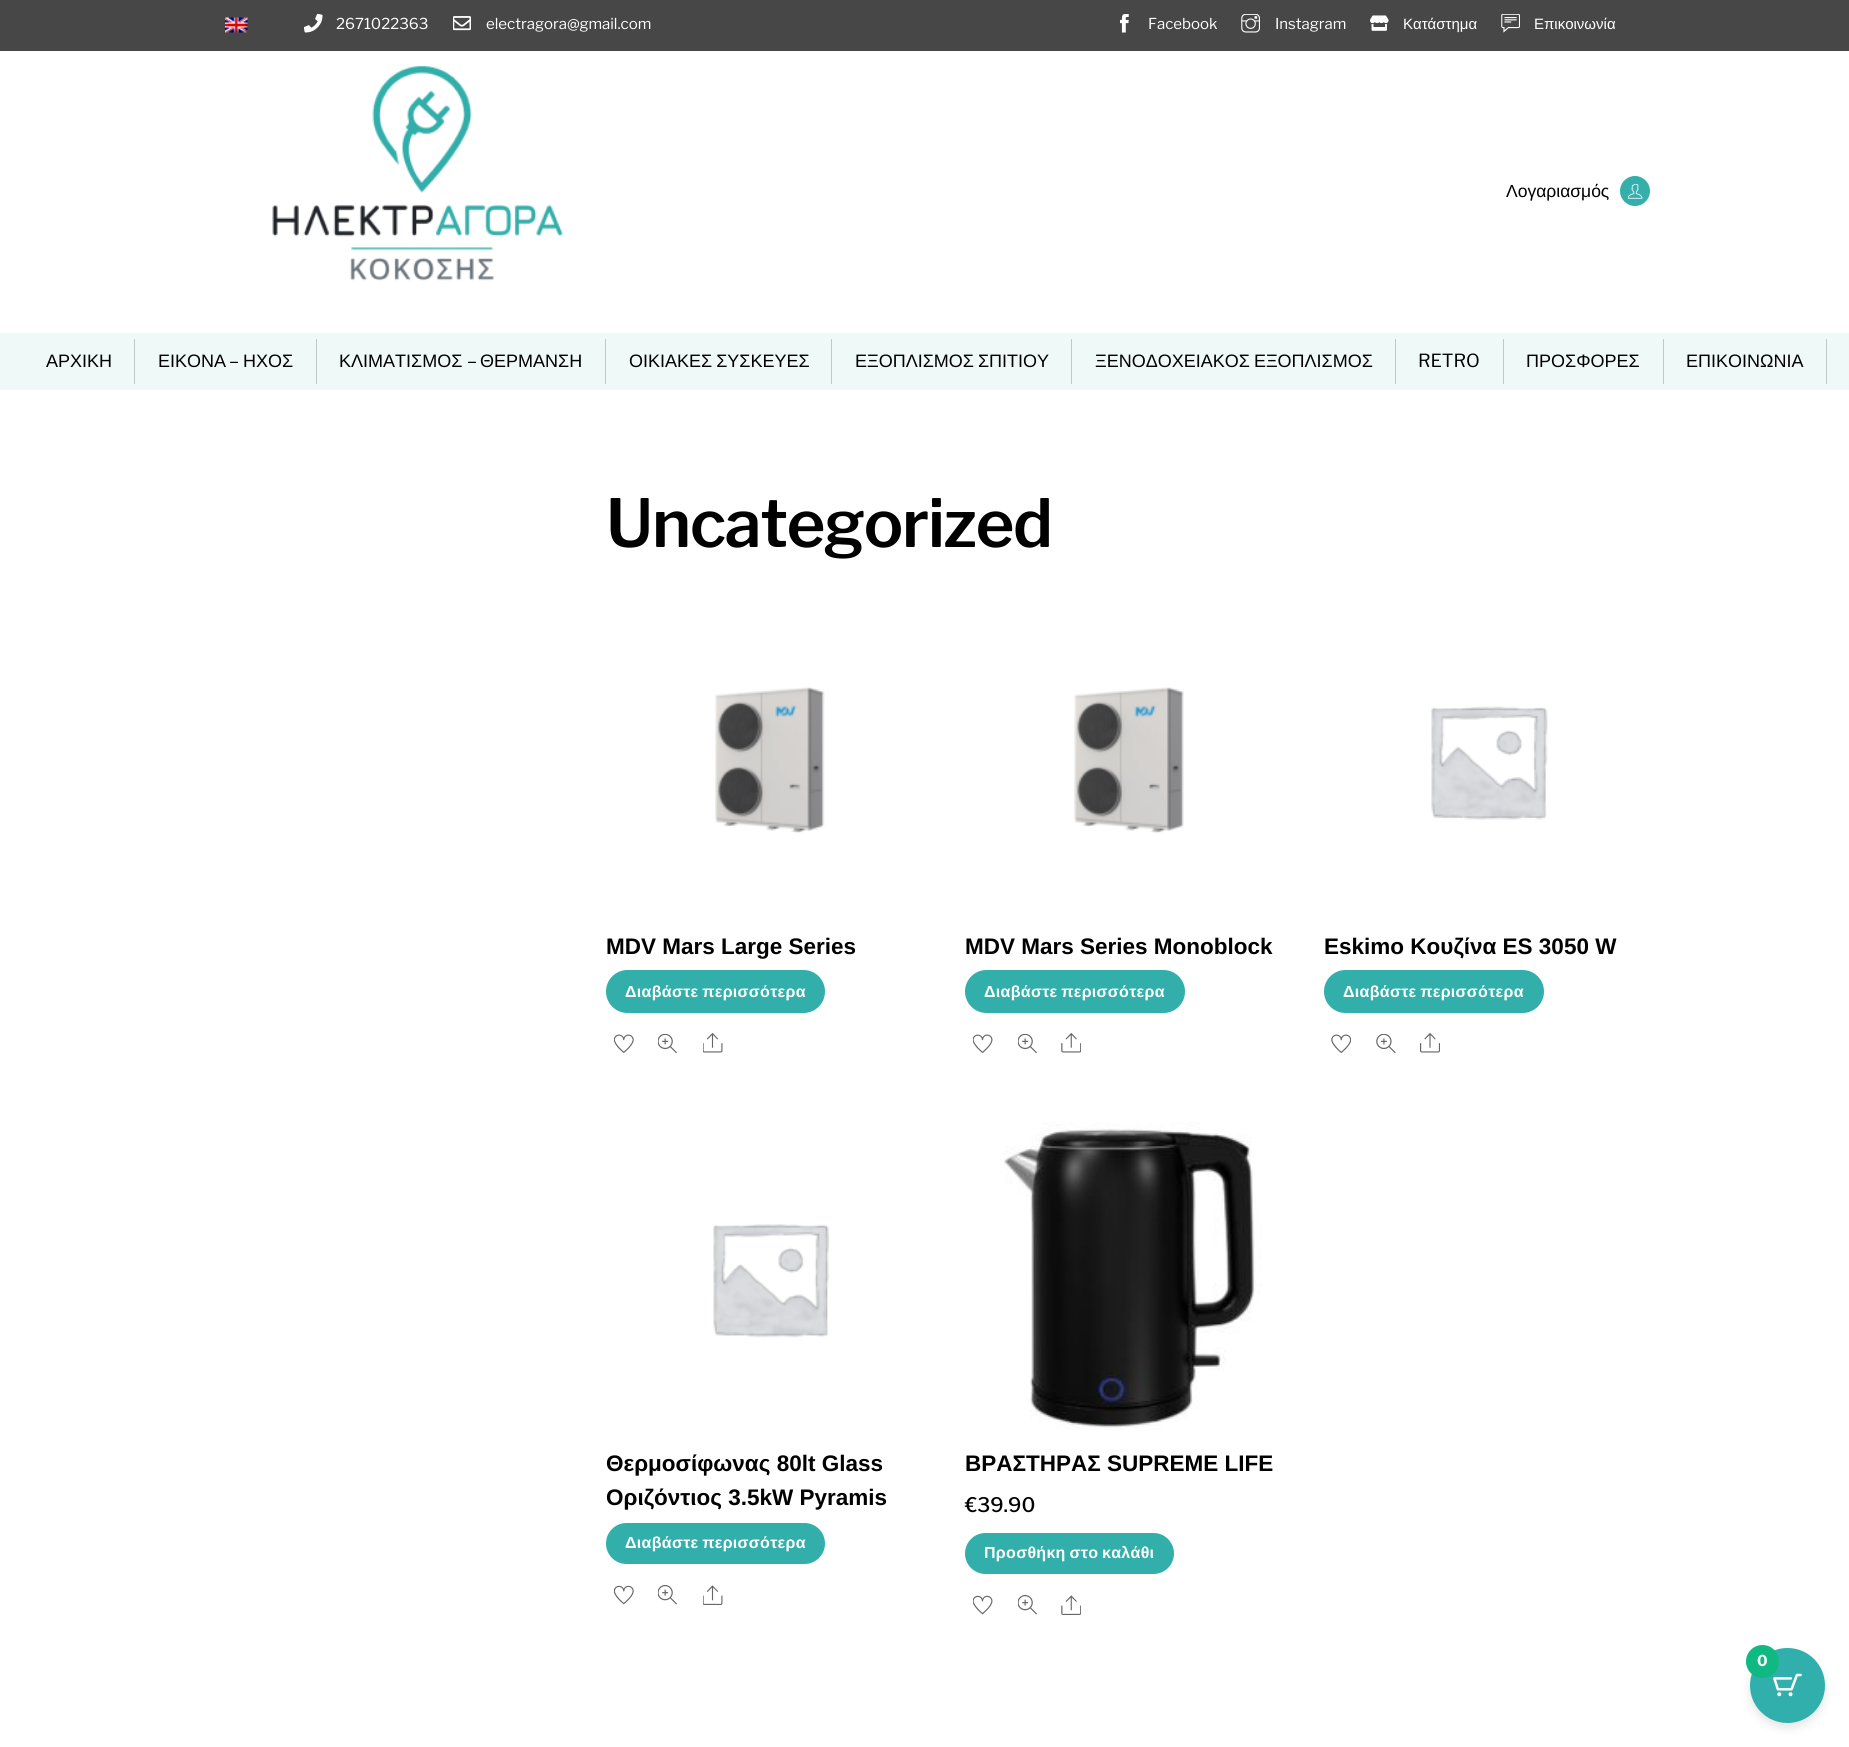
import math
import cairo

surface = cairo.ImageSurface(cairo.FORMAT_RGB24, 1849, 1747)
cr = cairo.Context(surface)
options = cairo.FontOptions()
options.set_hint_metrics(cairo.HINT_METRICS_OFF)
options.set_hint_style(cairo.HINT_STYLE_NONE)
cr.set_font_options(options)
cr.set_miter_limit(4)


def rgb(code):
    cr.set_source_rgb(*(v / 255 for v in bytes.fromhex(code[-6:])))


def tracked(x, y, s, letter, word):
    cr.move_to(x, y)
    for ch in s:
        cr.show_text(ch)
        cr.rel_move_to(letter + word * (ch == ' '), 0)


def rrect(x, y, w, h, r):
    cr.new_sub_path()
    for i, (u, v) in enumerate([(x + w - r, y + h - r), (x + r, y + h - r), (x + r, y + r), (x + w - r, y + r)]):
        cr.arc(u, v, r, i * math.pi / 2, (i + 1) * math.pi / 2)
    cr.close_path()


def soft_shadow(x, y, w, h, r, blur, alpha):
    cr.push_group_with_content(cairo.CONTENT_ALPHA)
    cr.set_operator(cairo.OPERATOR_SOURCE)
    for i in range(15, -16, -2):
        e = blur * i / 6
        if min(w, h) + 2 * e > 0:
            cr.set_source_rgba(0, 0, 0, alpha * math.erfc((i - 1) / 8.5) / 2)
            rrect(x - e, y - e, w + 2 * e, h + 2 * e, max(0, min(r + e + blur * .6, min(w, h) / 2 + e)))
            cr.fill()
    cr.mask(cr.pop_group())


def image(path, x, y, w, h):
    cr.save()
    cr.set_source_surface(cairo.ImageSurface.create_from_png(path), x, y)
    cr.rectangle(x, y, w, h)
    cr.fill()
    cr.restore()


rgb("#ffffff")
cr.paint()
rgb("#474747")
cr.rectangle(0, 0, 1849, 51)
cr.fill()
image("img/1.png", 225, 17, 23, 16)
image("img/2.png", 304, 14, 19, 19)
image("img/3.png", 453, 16, 18, 15)
image("img/4.png", 1120, 14, 9, 19)
image("img/5.png", 1241, 14, 19, 19)
image("img/6.png", 1370, 15, 19, 16)
image("img/7.png", 1501, 14, 19, 19)
image("img/8.png", 272, 65, 291, 216)
rgb("#34afa9")
cr.arc(1635, 191, 15, 0, 2 * math.pi)
cr.fill()
image("img/9.png", 1628, 184, 15, 15)
for x, y, w, h, color in [
    (0, 333, 1849, 57, "#eff9f8"),
    (134, 339, 1, 45, "#c2cac9"),
    (316, 339, 1, 45, "#c2cac9"),
    (605, 339, 1, 45, "#c2cac9"),
    (831, 339, 1, 45, "#c2cac9"),
    (1071, 339, 1, 45, "#c2cac9"),
    (1395, 339, 1, 45, "#c2cac9"),
    (1503, 339, 1, 45, "#c2cac9"),
    (1663, 339, 1, 45, "#c2cac9"),
    (1826, 339, 1, 45, "#c2cac9"),
]:
    rgb(color)
    cr.rectangle(x, y, w, h)
    cr.fill()
image("img/10.png", 715, 686, 110, 147)
rgb("#32afab")
rrect(606, 970, 219, 43, 21.5)
cr.fill()
image("img/11.png", 614, 1034, 20, 19)
image("img/12.png", 658, 1034, 19, 20)
image("img/13.png", 703, 1033, 20, 20)
image("img/14.png", 1074, 687, 110, 146)
rrect(965, 970, 220, 43, 21.5)
cr.fill()
image("img/15.png", 973, 1034, 20, 19)
image("img/12.png", 1018, 1034, 19, 20)
image("img/16.png", 1061, 1033, 20, 20)
image("img/17.png", 1431, 706, 117, 114)
rrect(1324, 970, 220, 43, 21.5)
cr.fill()
image("img/18.png", 1331, 1034, 20, 19)
image("img/19.png", 1376, 1034, 20, 20)
image("img/20.png", 1420, 1033, 20, 20)
image("img/21.png", 713, 1224, 117, 114)
rrect(606, 1523, 219, 41, 20.5)
cr.fill()
image("img/22.png", 614, 1585, 20, 20)
image("img/23.png", 658, 1585, 19, 20)
image("img/24.png", 703, 1585, 20, 20)
image("img/25.png", 1004, 1122, 258, 308)
rrect(965, 1533, 209, 41, 20.5)
cr.fill()
image("img/26.png", 973, 1595, 20, 20)
image("img/23.png", 1018, 1595, 19, 20)
image("img/27.png", 1061, 1595, 20, 20)
rgb("#000000")
soft_shadow(1750, 1653, 75, 75, 37.5, 4.5, 0.1)
rgb("#31afac")
cr.arc(1787.5, 1685.5, 37.5, 0, 2 * math.pi)
cr.fill()
image("img/28.png", 1773, 1673, 29, 24)
rgb("#10b981")
cr.arc(1762.5, 1661.5, 16.5, 0, 2 * math.pi)
cr.fill()
cr.select_font_face("Libre Franklin")
cr.set_font_size(15)
rgb("#ffffff")
for x, y, s in [
    (336, 29, "2671022363"),
    (486, 29, "electragora@gmail.com"),
    (1148, 29, "Facebook"),
    (1275, 29, "Instagram"),
]:
    cr.move_to(x, y)
    cr.show_text(s)
cr.select_font_face("Liberation Sans")
cr.move_to(1403, 29)
cr.show_text("Κατάστημα")
cr.move_to(1534, 29)
cr.show_text("Επικοινωνία")
cr.set_font_size(17.5)
rgb("#000000")
cr.move_to(1506, 197)
cr.show_text("Λογαριασμός")
cr.set_font_size(18)
cr.move_to(46, 367)
cr.show_text("ΑΡΧΙΚΗ")
cr.move_to(158, 367)
cr.show_text("ΕΙΚΟΝΑ")
cr.select_font_face("Libre Franklin")
cr.move_to(229, 367)
cr.show_text("–")
cr.select_font_face("Liberation Sans")
cr.move_to(243, 367)
cr.show_text("ΗΧΟΣ")
cr.move_to(339, 367)
cr.show_text("ΚΛΙΜΑΤΙΣΜΟΣ")
cr.select_font_face("Libre Franklin")
cr.move_to(467, 367)
cr.show_text("–")
cr.select_font_face("Liberation Sans")
cr.move_to(480, 367)
cr.show_text("ΘΕΡΜΑΝΣΗ")
for x, y, s in [
    (629, 367, "ΟΙΚΙΑΚΕΣ ΣΥΣΚΕΥΕΣ"),
    (855, 367, "ΕΞΟΠΛΙΣΜΟΣ ΣΠΙΤΙΟΥ"),
    (1095, 367, "ΞΕΝΟΔΟΧΕΙΑΚΟΣ ΕΞΟΠΛΙΣΜΟΣ"),
]:
    tracked(x, y, s, 0, -1)
cr.select_font_face("Libre Franklin")
cr.move_to(1418, 367)
cr.show_text("RETRO")
cr.select_font_face("Liberation Sans")
cr.move_to(1526, 367)
cr.show_text("ΠΡΟΣΦΟΡΕΣ")
cr.move_to(1686, 367)
cr.show_text("ΕΠΙΚΟΙΝΩΝΙΑ")
cr.select_font_face("Libre Franklin SemiBold")
cr.set_font_size(66)
tracked(606, 547, "Uncategorized", -1.25, 0)
cr.select_font_face("Liberation Sans", cairo.FONT_SLANT_NORMAL, cairo.FONT_WEIGHT_BOLD)
cr.set_font_size(22.5)
cr.move_to(606, 954)
cr.show_text("MDV Mars Large Series")
cr.set_font_size(16)
rgb("#ffffff")
tracked(625, 997, "Διαβάστε περισσότερα", 0.3, -1)
cr.set_font_size(22.5)
rgb("#000000")
cr.move_to(965, 954)
cr.show_text("MDV Mars Series Monoblock")
cr.set_font_size(16)
rgb("#ffffff")
tracked(984, 997, "Διαβάστε περισσότερα", 0.3, -1)
cr.set_font_size(22.5)
rgb("#000000")
cr.move_to(1324, 954)
cr.show_text("Eskimo Κουζίνα ES 3050 W")
cr.set_font_size(16)
rgb("#ffffff")
tracked(1343, 997, "Διαβάστε περισσότερα", 0.3, -1)
cr.set_font_size(22.5)
rgb("#000000")
cr.move_to(606, 1471)
cr.show_text("Θερμοσίφωνας 80lt Glass")
cr.move_to(606, 1505)
cr.show_text("Οριζόντιος 3.5kW Pyramis")
cr.set_font_size(16)
rgb("#ffffff")
tracked(625, 1548, "Διαβάστε περισσότερα", 0.3, -1)
cr.set_font_size(22.5)
rgb("#000000")
cr.move_to(965, 1471)
cr.show_text("ΒΡΑΣΤΗΡΑΣ SUPREME LIFE")
cr.select_font_face("Libre Franklin Medium")
cr.set_font_size(20)
cr.move_to(965, 1512)
cr.show_text("€39.90")
cr.select_font_face("Liberation Sans", cairo.FONT_SLANT_NORMAL, cairo.FONT_WEIGHT_BOLD)
cr.set_font_size(16)
rgb("#ffffff")
tracked(984, 1558, "Προσθήκη στο καλάθι", 0.3, -1)
cr.select_font_face("Libre Franklin", cairo.FONT_SLANT_NORMAL, cairo.FONT_WEIGHT_BOLD)
cr.set_font_size(15)
cr.move_to(1757, 1666)
cr.show_text("0")
surface.write_to_png("page.png")
